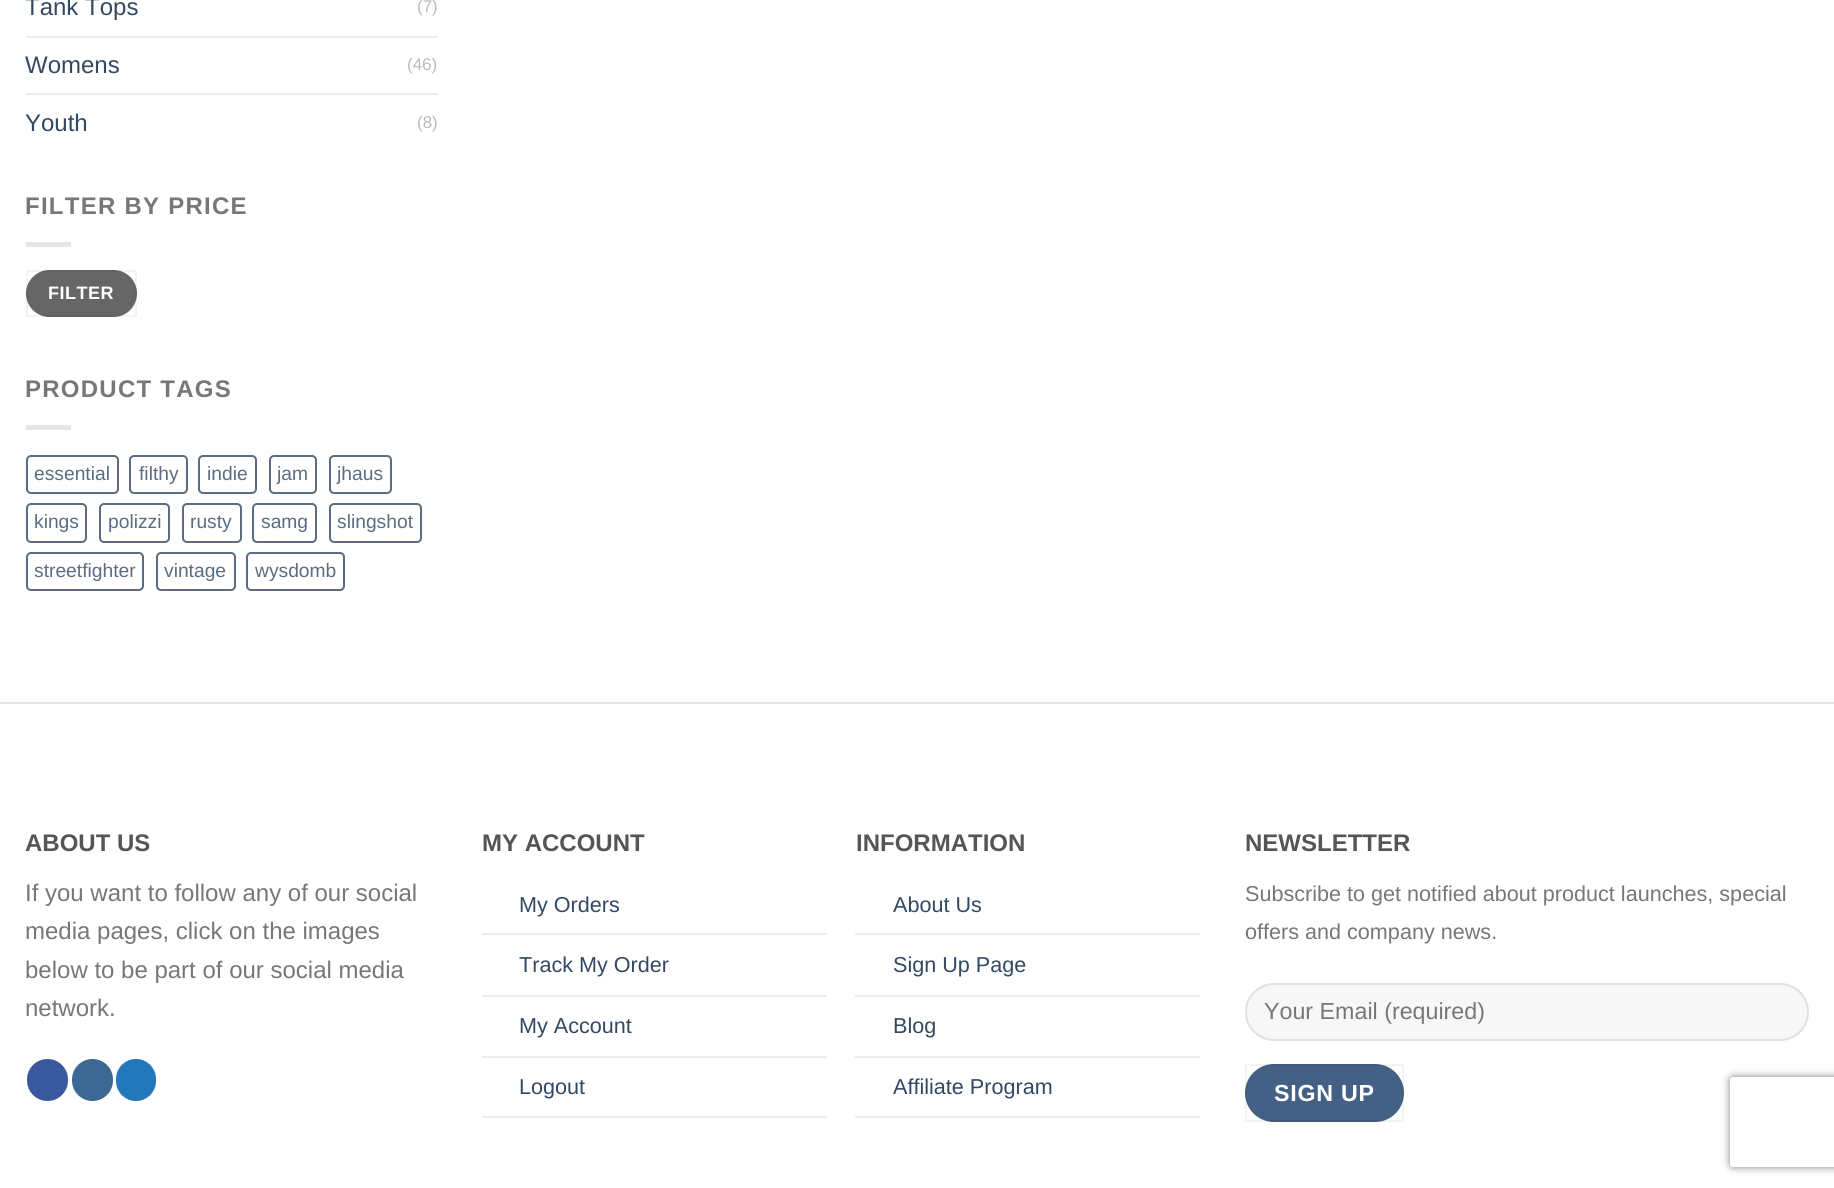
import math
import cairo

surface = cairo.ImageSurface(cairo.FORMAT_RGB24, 1834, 1188)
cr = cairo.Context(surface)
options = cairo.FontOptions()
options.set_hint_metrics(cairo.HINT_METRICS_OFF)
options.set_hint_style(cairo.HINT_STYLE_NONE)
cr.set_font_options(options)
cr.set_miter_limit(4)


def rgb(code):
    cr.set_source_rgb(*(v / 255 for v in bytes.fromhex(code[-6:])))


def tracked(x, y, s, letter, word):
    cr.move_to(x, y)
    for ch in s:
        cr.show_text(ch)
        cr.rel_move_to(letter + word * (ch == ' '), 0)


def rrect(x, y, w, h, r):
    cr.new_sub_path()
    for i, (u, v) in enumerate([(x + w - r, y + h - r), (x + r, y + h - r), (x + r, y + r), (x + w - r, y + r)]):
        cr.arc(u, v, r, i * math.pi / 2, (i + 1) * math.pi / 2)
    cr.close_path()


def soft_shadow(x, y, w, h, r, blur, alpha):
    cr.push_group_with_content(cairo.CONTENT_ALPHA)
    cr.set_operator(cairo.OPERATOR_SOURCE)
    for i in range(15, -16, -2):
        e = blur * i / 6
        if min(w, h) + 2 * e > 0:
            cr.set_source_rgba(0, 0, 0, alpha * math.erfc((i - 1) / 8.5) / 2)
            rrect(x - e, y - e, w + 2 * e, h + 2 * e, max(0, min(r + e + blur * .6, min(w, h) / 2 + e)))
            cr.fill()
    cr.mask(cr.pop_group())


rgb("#ffffff")
cr.paint()
for x, y, w, h, color in [
    (26, 36, 412, 2, "#ececec"),
    (26, 93, 412, 2, "#ececec"),
    (26, 242, 45, 5, "#e6e6e6"),
]:
    rgb(color)
    cr.rectangle(x, y, w, h)
    cr.fill()
rgb("#666666")
rrect(26, 270, 111, 47, 23.5)
cr.fill()
cr.rectangle(27, 271, 109, 45)
cr.set_source_rgba(0, 0, 0, 0.05)
cr.stroke()
rgb("#e6e6e6")
cr.rectangle(26, 425, 45, 5)
cr.fill()
rrect(27, 456, 91, 37, 4)
rgb("#5c6d81")
cr.stroke()
rrect(130, 456, 57, 37, 4)
cr.stroke()
rrect(199, 456, 57, 37, 4)
cr.stroke()
rrect(270, 456, 46, 37, 4)
cr.stroke()
rrect(330, 456, 61, 37, 4)
cr.stroke()
rrect(27, 504, 59, 38, 4)
cr.stroke()
rrect(100, 504, 69, 38, 4)
cr.stroke()
rrect(183, 504, 58, 38, 4)
cr.stroke()
rrect(253, 504, 63, 38, 4)
cr.stroke()
rrect(330, 504, 91, 38, 4)
cr.stroke()
rrect(27, 553, 116, 37, 4)
cr.stroke()
rrect(157, 553, 78, 37, 4)
cr.stroke()
rrect(247, 553, 97, 37, 4)
cr.stroke()
rgb("#e6e6e6")
cr.rectangle(0, 702, 1834, 2)
cr.fill()
rgb("#3a589d")
rrect(28, 1060, 39, 40, 19.5)
cr.fill_preserve()
cr.stroke()
rgb("#3b6994")
rrect(73, 1060, 39, 40, 19.5)
cr.fill_preserve()
cr.stroke()
rgb("#2478ba")
rrect(117, 1060, 38, 40, 19)
cr.fill_preserve()
cr.stroke()
for x, y, w, h, color in [
    (482, 933, 345, 2, "#ececec"),
    (482, 995, 345, 2, "#ececec"),
    (482, 1056, 345, 2, "#ececec"),
    (482, 1116, 345, 2, "#ececec"),
    (855, 933, 345, 2, "#ececec"),
    (855, 995, 345, 2, "#ececec"),
    (855, 1056, 345, 2, "#ececec"),
    (855, 1116, 345, 2, "#ececec"),
]:
    rgb(color)
    cr.rectangle(x, y, w, h)
    cr.fill()
rgb("#f7f7f7")
rrect(1245, 983, 564, 58, 29)
cr.fill()
rrect(1246, 984, 562, 56, 28)
cr.set_source_rgba(0, 0, 0, 0.09)
cr.stroke()
rgb("#446084")
rrect(1245, 1064, 159, 58, 29)
cr.fill()
cr.rectangle(1246, 1065, 157, 56)
cr.set_source_rgba(0, 0, 0, 0.05)
cr.stroke()
cr.save()
cr.set_fill_rule(cairo.FILL_RULE_EVEN_ODD)
cr.new_path()
cr.move_to(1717, 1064)
cr.line_to(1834, 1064)
cr.line_to(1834, 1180)
cr.line_to(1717, 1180)
cr.close_path()
cr.move_to(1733, 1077)
cr.line_to(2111, 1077)
cr.curve_to(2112.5, 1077, 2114, 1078.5, 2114, 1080)
cr.line_to(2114, 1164)
cr.curve_to(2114, 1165.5, 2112.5, 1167, 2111, 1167)
cr.line_to(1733, 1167)
cr.curve_to(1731.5, 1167, 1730, 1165.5, 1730, 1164)
cr.line_to(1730, 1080)
cr.curve_to(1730, 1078.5, 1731.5, 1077, 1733, 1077)
cr.close_path()
cr.clip()
rgb("#808080")
soft_shadow(1730, 1077, 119, 90, 3, 4, 1)
cr.restore()
cr.select_font_face("Liberation Sans")
cr.set_font_size(24)
rgb("#334862")
cr.move_to(25, 15)
cr.show_text("Tank Tops")
cr.set_font_size(17)
rgb("#bbbbbb")
cr.move_to(417, 12)
cr.show_text("(7)")
cr.set_font_size(24)
rgb("#334862")
cr.move_to(25, 73)
cr.show_text("Womens")
cr.set_font_size(17)
rgb("#bbbbbb")
cr.move_to(407, 70)
cr.show_text("(46)")
cr.set_font_size(24)
rgb("#334862")
cr.move_to(25, 131)
cr.show_text("Youth")
cr.set_font_size(17)
rgb("#bbbbbb")
cr.move_to(417, 128)
cr.show_text("(8)")
cr.select_font_face("Liberation Sans", cairo.FONT_SLANT_NORMAL, cairo.FONT_WEIGHT_BOLD)
cr.set_font_size(24)
rgb("#777777")
tracked(25, 214, "FILTER BY PRICE", 1.25, 0)
cr.set_font_size(18)
rgb("#ffffff")
tracked(48, 299, "FILTER", 0.5, 0)
cr.set_font_size(24)
rgb("#777777")
tracked(25, 397, "PRODUCT TAGS", 1.25, 0)
cr.select_font_face("Liberation Sans")
cr.set_font_size(19.25)
rgb("#5c6d81")
for x, y, s in [
    (34, 480, "essential"),
    (139, 480, "filthy"),
    (207, 480, "indie"),
    (277, 480, "jam"),
    (337, 480, "jhaus"),
    (34, 528, "kings"),
    (108, 528, "polizzi"),
    (190, 528, "rusty"),
    (261, 528, "samg"),
    (337, 528, "slingshot"),
    (34, 577, "streetfighter"),
    (164, 577, "vintage"),
    (255, 577, "wysdomb"),
]:
    cr.move_to(x, y)
    cr.show_text(s)
cr.select_font_face("Liberation Sans", cairo.FONT_SLANT_NORMAL, cairo.FONT_WEIGHT_BOLD)
cr.set_font_size(24)
rgb("#555555")
cr.move_to(25, 851)
cr.show_text("ABOUT US")
cr.select_font_face("Liberation Sans")
rgb("#777777")
for x, y, s in [
    (25, 901, "If you want to follow any of our social"),
    (25, 939, "media pages, click on the images"),
    (25, 978, "below to be part of our social media"),
    (25, 1016, "network."),
]:
    cr.move_to(x, y)
    cr.show_text(s)
cr.select_font_face("Liberation Sans", cairo.FONT_SLANT_NORMAL, cairo.FONT_WEIGHT_BOLD)
rgb("#555555")
cr.move_to(482, 851)
cr.show_text("MY ACCOUNT")
cr.select_font_face("Liberation Sans")
cr.set_font_size(21.6)
rgb("#334862")
for x, y, s in [
    (519, 912, "My Orders"),
    (519, 972, "Track My Order"),
    (519, 1033, "My Account"),
    (519, 1094, "Logout"),
]:
    cr.move_to(x, y)
    cr.show_text(s)
cr.select_font_face("Liberation Sans", cairo.FONT_SLANT_NORMAL, cairo.FONT_WEIGHT_BOLD)
cr.set_font_size(24)
rgb("#555555")
cr.move_to(856, 851)
cr.show_text("INFORMATION")
cr.select_font_face("Liberation Sans")
cr.set_font_size(21.6)
rgb("#334862")
for x, y, s in [
    (893, 912, "About Us"),
    (893, 972, "Sign Up Page"),
    (893, 1033, "Blog"),
    (893, 1094, "Affiliate Program"),
]:
    cr.move_to(x, y)
    cr.show_text(s)
cr.select_font_face("Liberation Sans", cairo.FONT_SLANT_NORMAL, cairo.FONT_WEIGHT_BOLD)
cr.set_font_size(24)
rgb("#555555")
cr.move_to(1245, 851)
cr.show_text("NEWSLETTER")
cr.select_font_face("Liberation Sans")
cr.set_font_size(21.6)
rgb("#777777")
cr.move_to(1245, 901)
cr.show_text("Subscribe to get notified about product launches, special")
cr.move_to(1245, 939)
cr.show_text("offers and company news.")
cr.set_font_size(23.25)
cr.move_to(1264, 1019)
cr.show_text("Your Email (required)")
cr.select_font_face("Liberation Sans", cairo.FONT_SLANT_NORMAL, cairo.FONT_WEIGHT_BOLD)
rgb("#ffffff")
tracked(1274, 1101, "SIGN UP", 0.75, 0)
surface.write_to_png("page.png")
